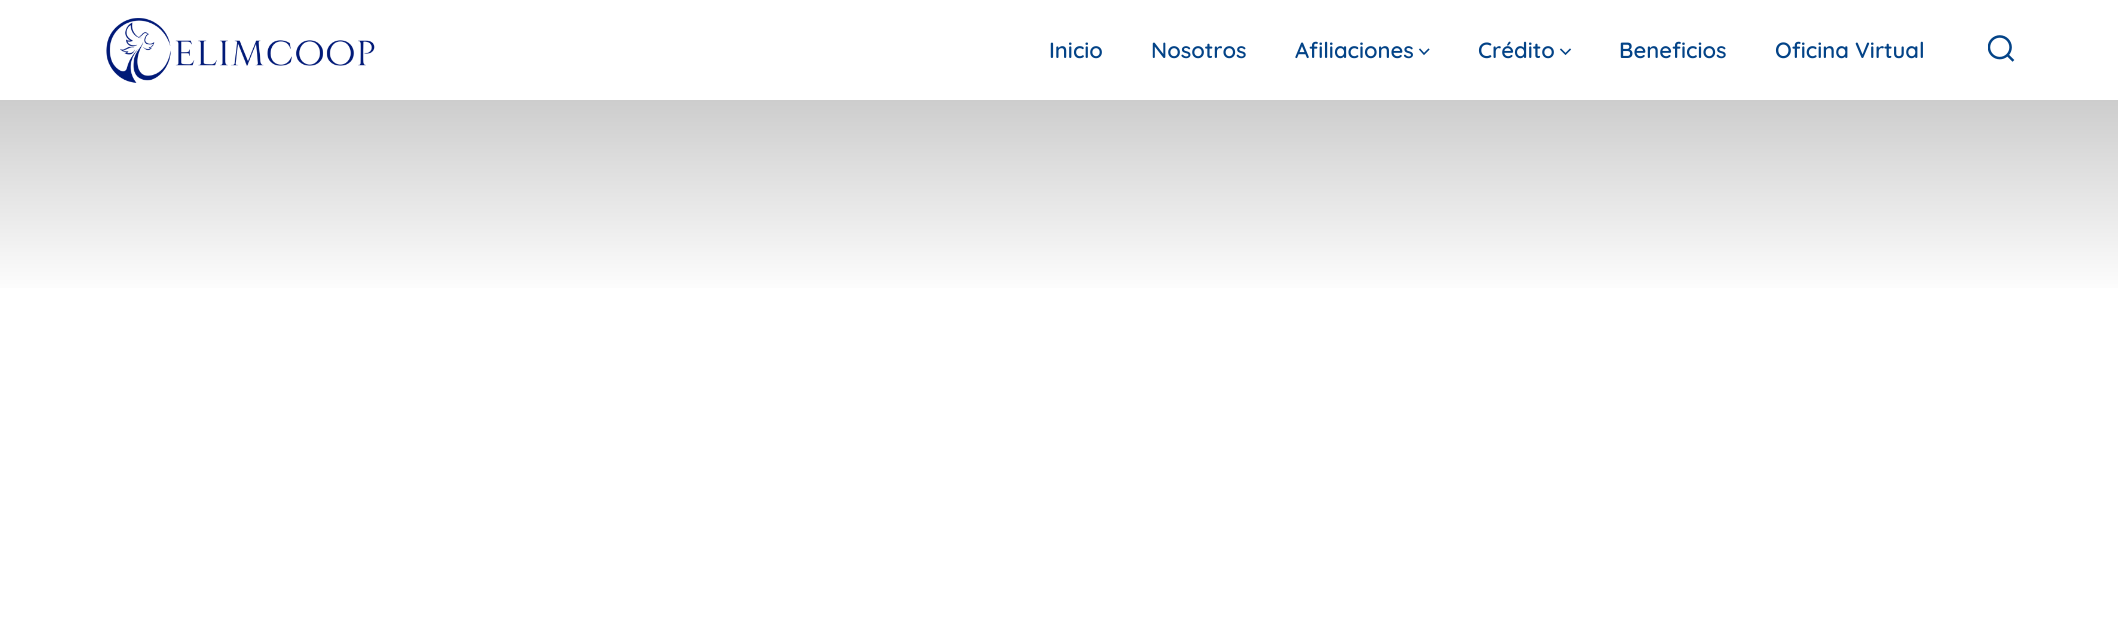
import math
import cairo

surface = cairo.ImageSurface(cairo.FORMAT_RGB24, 2118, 629)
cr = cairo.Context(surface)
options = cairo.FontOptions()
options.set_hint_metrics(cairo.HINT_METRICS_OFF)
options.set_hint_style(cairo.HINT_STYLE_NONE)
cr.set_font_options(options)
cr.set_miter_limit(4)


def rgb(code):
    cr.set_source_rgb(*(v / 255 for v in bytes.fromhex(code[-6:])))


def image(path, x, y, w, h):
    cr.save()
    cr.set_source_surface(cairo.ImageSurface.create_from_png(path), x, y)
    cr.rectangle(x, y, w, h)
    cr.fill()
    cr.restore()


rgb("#ffffff")
cr.paint()
image("img/1.png", 106, 18, 269, 65)
cr.new_path()
cr.move_to(1420, 49.5)
cr.line_to(1424, 54)
cr.line_to(1428.5, 49.5)
rgb("#034387")
cr.set_line_width(1.6)
cr.set_line_cap(cairo.LINE_CAP_SQUARE)
cr.stroke()
cr.new_path()
cr.move_to(1561, 49.5)
cr.line_to(1565.5, 54)
cr.line_to(1570, 49.5)
cr.stroke()
image("img/2.png", 1988, 35, 27, 27)
gradient = cairo.LinearGradient(1059, 100, 1059, 595)
gradient.add_color_stop_rgba(0, 0.804, 0.804, 0.804, 1)
gradient.add_color_stop_rgba(0.4, 1, 1, 1, 1)
cr.set_source(gradient)
cr.rectangle(0, 100, 2118, 188)
cr.fill()
cr.select_font_face("Quicksand SemiBold")
cr.set_font_size(22)
rgb("#034387")
for x, y, s in [
    (1049, 58, "Inicio"),
    (1151, 58, "Nosotros"),
    (1295, 58, "Afiliaciones"),
    (1478, 58, "Crédito"),
    (1619, 58, "Beneficios"),
    (1775, 58, "Oficina Virtual"),
]:
    cr.move_to(x, y)
    cr.show_text(s)
surface.write_to_png("page.png")
